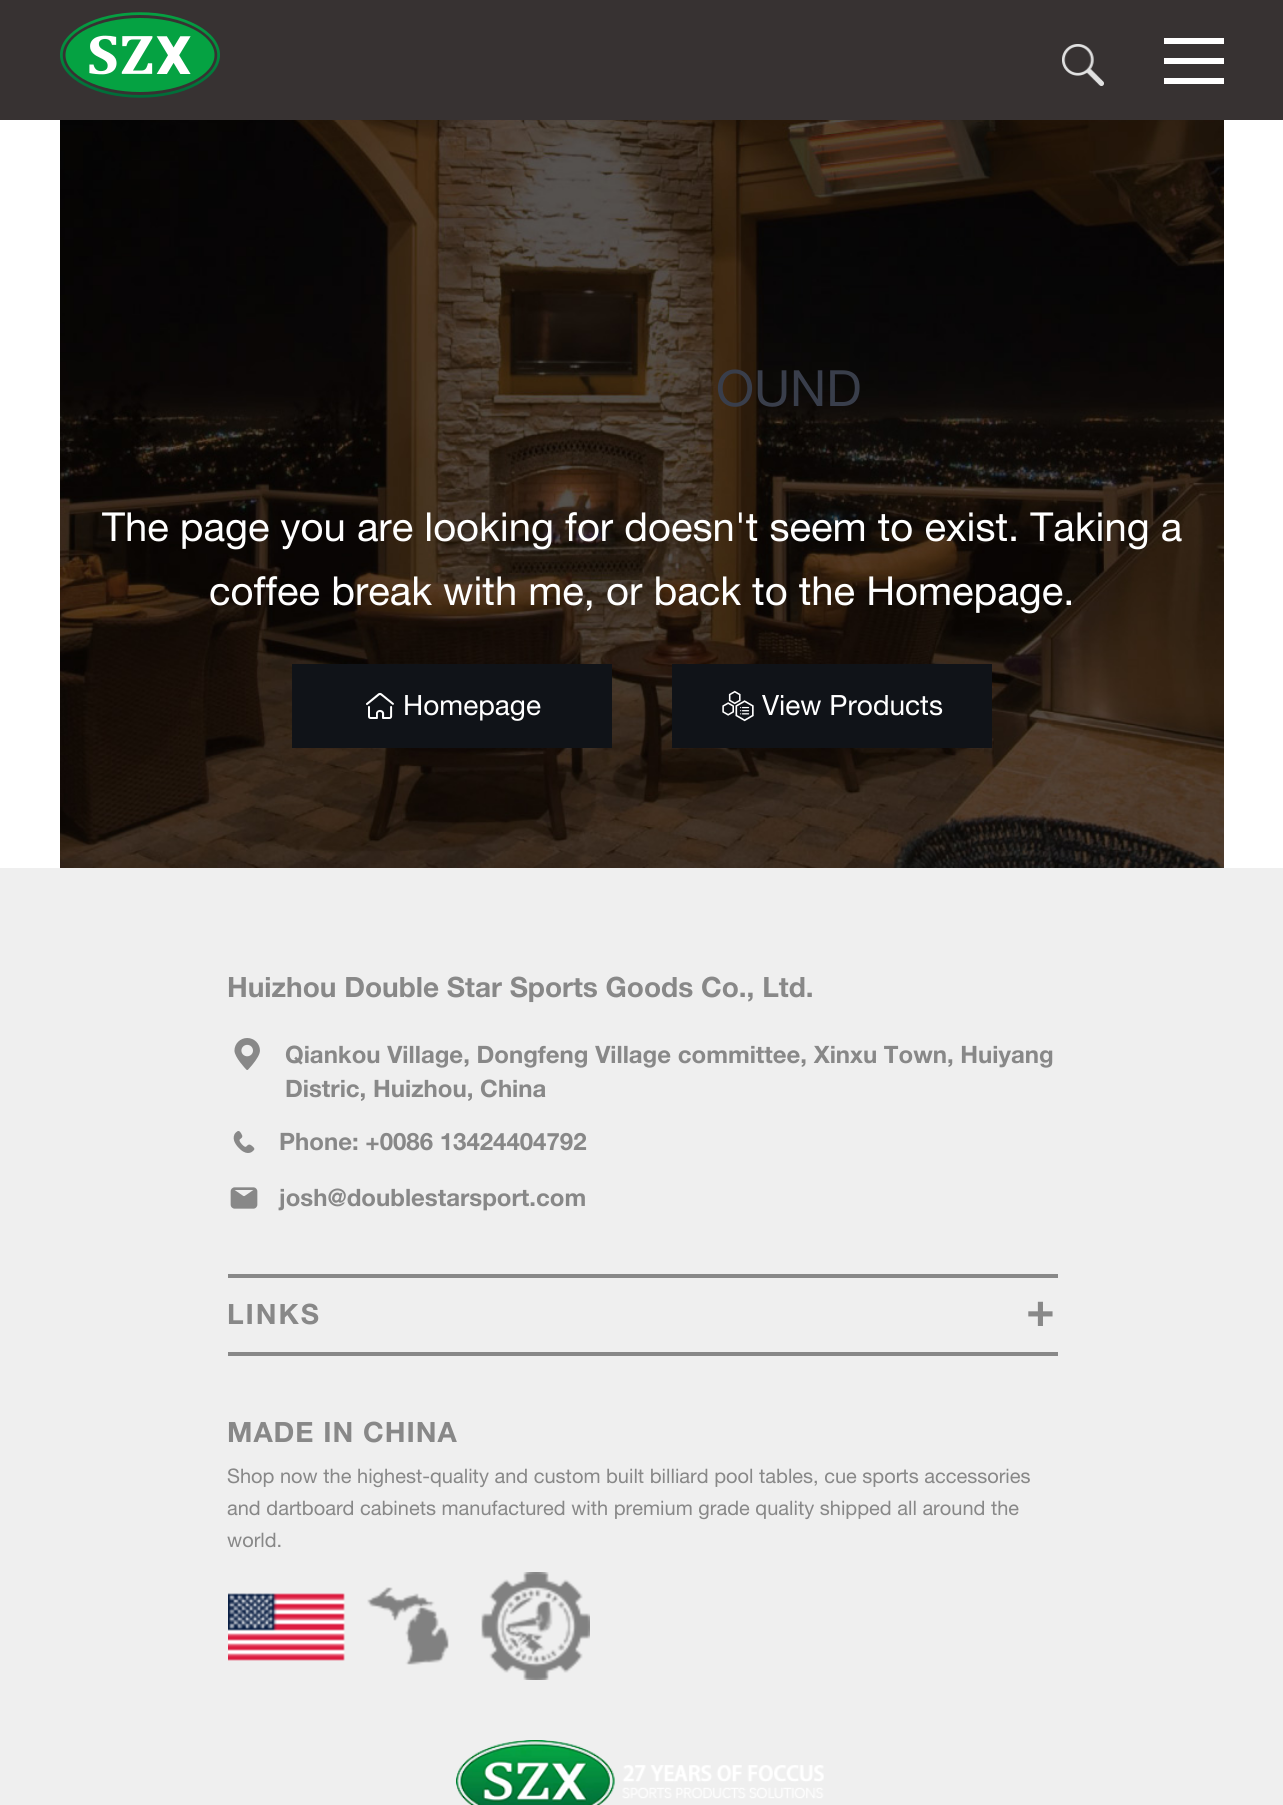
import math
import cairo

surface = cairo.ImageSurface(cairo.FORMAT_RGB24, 1283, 1805)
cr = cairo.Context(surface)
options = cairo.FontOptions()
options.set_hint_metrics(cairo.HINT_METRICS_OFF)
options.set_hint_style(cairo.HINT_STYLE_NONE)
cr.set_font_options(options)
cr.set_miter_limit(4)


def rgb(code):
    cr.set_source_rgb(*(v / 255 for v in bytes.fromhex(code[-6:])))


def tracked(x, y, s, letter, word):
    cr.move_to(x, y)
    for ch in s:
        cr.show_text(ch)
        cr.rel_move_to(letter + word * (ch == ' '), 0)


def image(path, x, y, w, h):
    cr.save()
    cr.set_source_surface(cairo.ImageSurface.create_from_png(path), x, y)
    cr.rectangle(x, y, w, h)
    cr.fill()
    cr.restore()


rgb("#ffffff")
cr.paint()
rgb("#373232")
cr.rectangle(0, 0, 1283, 120)
cr.fill()
image("img/1.png", 60, 12, 160, 86)
image("img/2.png", 1062, 44, 42, 42)
for x, y, w, h, color in [
    (1164, 38, 60, 6, "#ffffff"),
    (1164, 58, 60, 6, "#ffffff"),
    (1164, 78, 60, 6, "#ffffff"),
]:
    rgb(color)
    cr.rectangle(x, y, w, h)
    cr.fill()
image("img/3.png", 60, 120, 1164, 748)
rgb("#101318")
cr.rectangle(292, 664, 320, 84)
cr.fill()
image("img/4.png", 366, 692, 28, 27)
cr.rectangle(672, 664, 320, 84)
cr.fill()
image("img/5.png", 722, 690, 32, 32)
rgb("#efefef")
cr.rectangle(0, 868, 1283, 937)
cr.fill()
image("img/6.png", 234, 1038, 26, 32)
image("img/7.png", 233, 1131, 22, 22)
image("img/8.png", 230, 1187, 28, 22)
rgb("#888888")
cr.rectangle(228, 1352, 830, 4)
cr.fill()
cr.rectangle(228, 1274, 830, 4)
cr.fill()
image("img/9.png", 228, 1572, 362, 108)
image("img/10.png", 456, 1740, 368, 65)
cr.select_font_face("Helvetica Neue")
cr.set_font_size(50)
rgb("#393e4b")
cr.move_to(716, 406)
cr.show_text("OUND")
cr.set_font_size(40)
rgb("#ffffff")
cr.move_to(102, 541)
cr.show_text("The page you are looking for doesn't seem to exist. Taking a")
cr.move_to(209, 605)
cr.show_text("coffee break with me, or back to the Homepage.")
cr.set_font_size(28)
cr.move_to(403, 715)
cr.show_text("Homepage")
cr.move_to(762, 715)
cr.show_text("View Products")
cr.select_font_face("Helvetica Neue", cairo.FONT_SLANT_NORMAL, cairo.FONT_WEIGHT_BOLD)
rgb("#888888")
cr.move_to(227, 997)
cr.show_text("Huizhou Double Star Sports Goods Co., Ltd.")
cr.set_font_size(24)
for x, y, s in [
    (285, 1063, "Qiankou Village, Dongfeng Village committee, Xinxu Town, Huiyang"),
    (285, 1097, "Distric, Huizhou, China"),
    (279, 1150, "Phone: +0086 13424404792"),
    (279, 1206, "josh@doublestarsport.com"),
]:
    cr.move_to(x, y)
    cr.show_text(s)
cr.set_font_size(28)
tracked(227, 1324, "LINKS", 2, 0)
cr.set_font_size(48)
tracked(1026, 1326, "+", 2, 0)
cr.set_font_size(28)
tracked(227, 1442, "MADE IN CHINA", 1, 0)
cr.select_font_face("Helvetica Neue")
cr.set_font_size(20)
for x, y, s in [
    (227, 1483, "Shop now the highest-quality and custom built billiard pool tables, cue sports accessories"),
    (227, 1515, "and dartboard cabinets manufactured with premium grade quality shipped all around the"),
    (227, 1547, "world."),
]:
    cr.move_to(x, y)
    cr.show_text(s)
surface.write_to_png("page.png")
